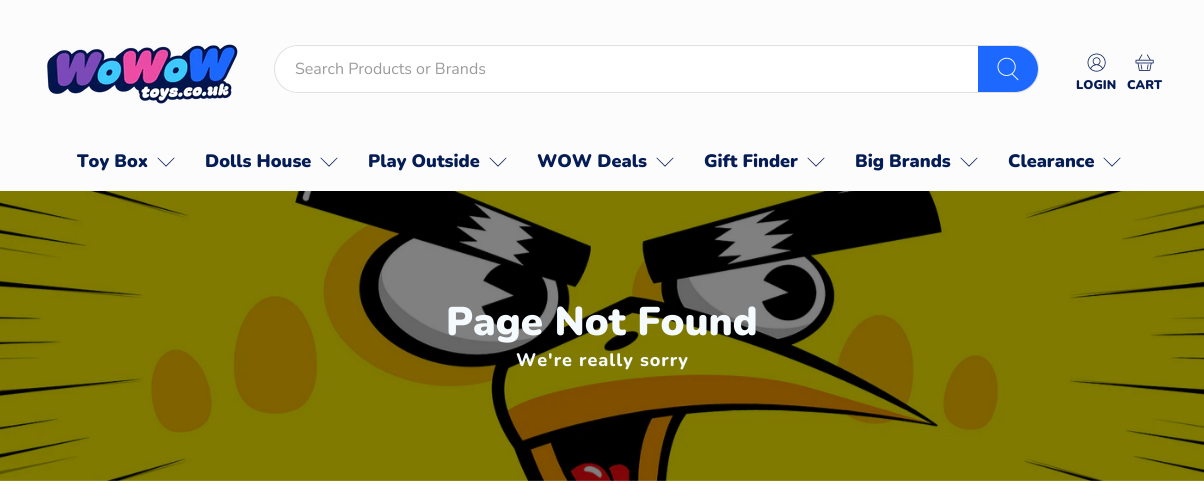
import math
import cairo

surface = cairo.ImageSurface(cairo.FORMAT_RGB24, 1204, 484)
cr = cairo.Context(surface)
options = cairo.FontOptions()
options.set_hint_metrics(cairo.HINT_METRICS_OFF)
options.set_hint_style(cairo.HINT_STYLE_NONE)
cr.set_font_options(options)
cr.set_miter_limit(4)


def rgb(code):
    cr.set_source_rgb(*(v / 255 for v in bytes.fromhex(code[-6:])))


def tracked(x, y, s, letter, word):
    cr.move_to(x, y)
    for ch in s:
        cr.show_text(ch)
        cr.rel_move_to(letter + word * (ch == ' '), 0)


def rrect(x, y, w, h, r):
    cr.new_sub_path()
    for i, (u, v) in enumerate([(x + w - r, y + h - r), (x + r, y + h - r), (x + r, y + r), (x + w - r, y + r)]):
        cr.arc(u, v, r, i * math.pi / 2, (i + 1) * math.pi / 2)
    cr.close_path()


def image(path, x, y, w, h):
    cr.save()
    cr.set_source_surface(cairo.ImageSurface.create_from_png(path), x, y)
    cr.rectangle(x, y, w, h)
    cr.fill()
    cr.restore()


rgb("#ffffff")
cr.paint()
rgb("#fcfcfc")
cr.rectangle(0, 0, 1204, 191)
cr.fill()
image("img/1.png", 47, 44, 191, 60)
rgb("#ffffff")
rrect(274.5, 45.5, 764, 47, 23.5)
cr.fill_preserve()
rgb("#e0e0e0")
cr.set_line_width(1)
cr.stroke()
cr.save()
rrect(275, 46, 763, 46, 23)
cr.clip()
rgb("#ffffff")
cr.rectangle(285, 46, 693, 46)
cr.fill()
cr.restore()
rgb("#1d68ff")
cr.new_path()
cr.move_to(978, 46)
cr.line_to(1015, 46)
cr.curve_to(1027.5, 46, 1038, 56.5, 1038, 69)
cr.curve_to(1038, 81.5, 1027.5, 92, 1015, 92)
cr.line_to(978, 92)
cr.close_path()
cr.fill()
image("img/2.png", 997, 57, 22, 24)
image("img/3.png", 1087, 53, 19, 19)
image("img/4.png", 1135, 54, 19, 17)
image("img/5.png", 157, 157, 18, 10)
image("img/5.png", 320, 157, 18, 10)
image("img/5.png", 489, 157, 18, 10)
image("img/5.png", 656, 157, 18, 10)
image("img/5.png", 807, 157, 18, 10)
image("img/5.png", 960, 157, 18, 10)
image("img/5.png", 1103, 157, 18, 10)
image("img/6.png", 0, 191, 1204, 290)
cr.select_font_face("Nunito")
cr.set_font_size(16)
rgb("#9b9b9b")
cr.move_to(295, 74)
cr.show_text("Search Products or Brands")
cr.select_font_face("Nunito Black")
cr.set_font_size(12.5)
rgb("#051c56")
cr.move_to(1076, 89)
cr.show_text("LOGIN")
cr.move_to(1127, 89)
cr.show_text("CART")
cr.set_font_size(18)
for x, y, s in [
    (77, 167, "Toy Box"),
    (205, 167, "Dolls House"),
    (368, 167, "Play Outside"),
    (537, 167, "WOW Deals"),
    (704, 167, "Gift Finder"),
    (855, 167, "Big Brands"),
    (1008, 167, "Clearance"),
]:
    cr.move_to(x, y)
    cr.show_text(s)
cr.set_font_size(40)
rgb("#f4fafd")
cr.move_to(446, 335)
cr.show_text("Page Not Found")
cr.select_font_face("Nunito ExtraBold")
cr.set_font_size(18)
tracked(516, 366, "We're really sorry", 1, 0)
surface.write_to_png("page.png")
